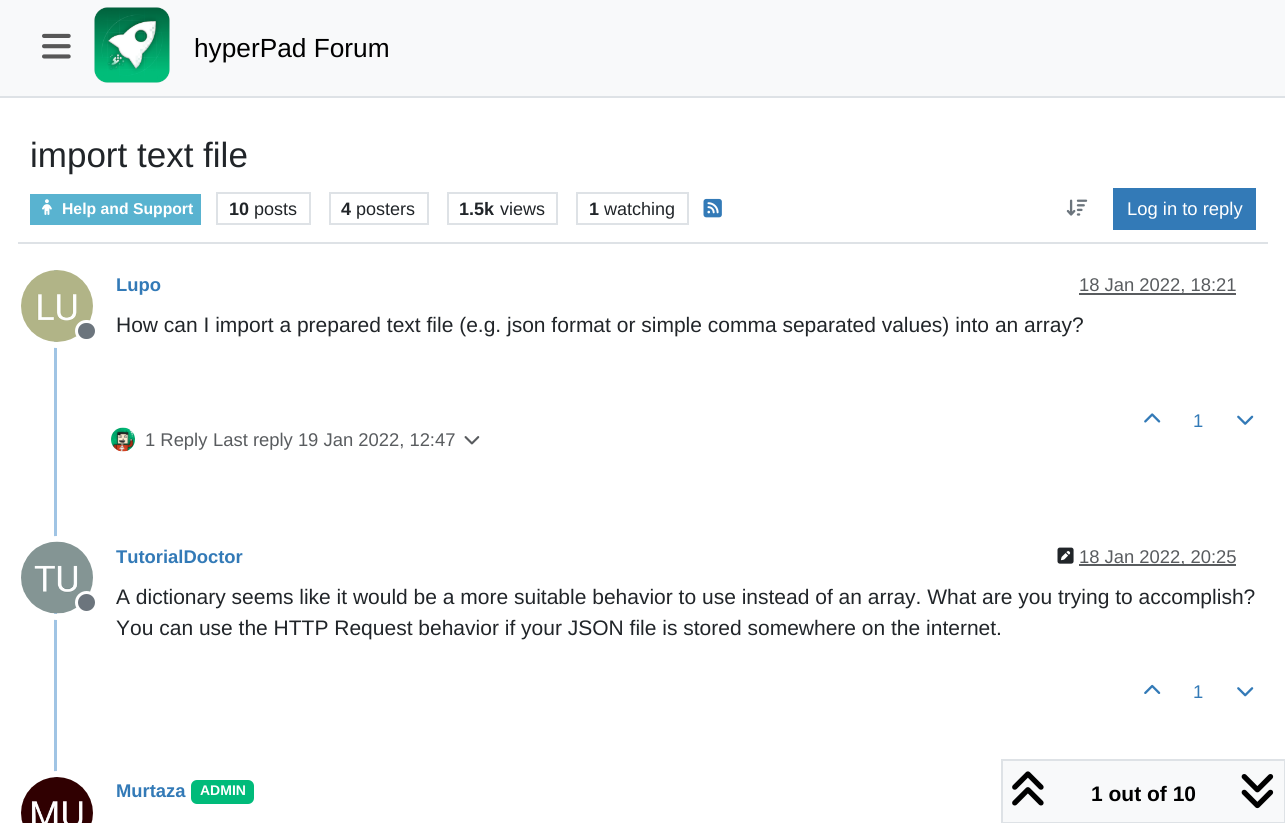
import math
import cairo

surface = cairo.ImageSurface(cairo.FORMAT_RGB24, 1285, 823)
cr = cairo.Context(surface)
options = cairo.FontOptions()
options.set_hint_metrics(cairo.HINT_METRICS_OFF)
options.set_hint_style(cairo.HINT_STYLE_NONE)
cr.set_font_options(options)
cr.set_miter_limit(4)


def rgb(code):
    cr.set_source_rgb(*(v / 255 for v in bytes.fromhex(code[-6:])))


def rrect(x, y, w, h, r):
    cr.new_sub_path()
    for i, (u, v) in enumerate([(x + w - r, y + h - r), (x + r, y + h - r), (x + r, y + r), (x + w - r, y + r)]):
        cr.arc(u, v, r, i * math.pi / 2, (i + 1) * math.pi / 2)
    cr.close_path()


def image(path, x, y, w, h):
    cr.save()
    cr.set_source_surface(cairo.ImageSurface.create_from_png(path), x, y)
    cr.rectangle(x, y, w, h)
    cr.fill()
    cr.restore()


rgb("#ffffff")
cr.paint()
rgb("#f8f9fa")
cr.rectangle(0, 0, 1285, 96)
cr.fill()
rgb("#dee2e6")
cr.rectangle(0, 96, 1285, 2)
cr.fill()
image("img/1.png", 42, 33, 29, 26)
image("img/2.png", 94, 7, 76, 76)
cr.rectangle(18, 242, 1250, 2)
cr.fill()
rgb("#59b3d0")
cr.rectangle(30, 194, 171, 31)
cr.fill()
image("img/3.png", 42, 199, 10, 16)
cr.rectangle(217, 193, 93, 31)
rgb("#dee2e6")
cr.stroke()
cr.rectangle(330, 193, 98, 31)
cr.stroke()
cr.rectangle(448, 193, 109, 31)
cr.stroke()
cr.rectangle(577, 193, 111, 31)
cr.stroke()
image("img/4.png", 703, 198, 19, 20)
image("img/5.png", 1066, 199, 22, 17)
rgb("#337ab7")
cr.rectangle(1113, 188, 143, 42)
cr.fill()
rgb("#a0c4e4")
cr.rectangle(54, 267, 3, 511)
cr.fill()
cr.arc(57, 306, 39, 0, 2 * math.pi)
rgb("#ffffff")
cr.set_line_width(6)
cr.stroke()
image("img/6.png", 21, 270, 72, 72)
rgb("#6c757d")
rrect(76.5, 321.5, 20, 19, 9.5)
cr.fill_preserve()
rgb("#ffffff")
cr.set_line_width(3)
cr.stroke()
rgb("#595c5f")
cr.rectangle(1079, 293, 157, 2)
cr.fill()
image("img/7.png", 1144, 413, 17, 10)
image("img/8.png", 1237, 415, 17, 10)
image("img/9.png", 111, 427, 24, 25)
image("img/10.png", 464, 436, 16, 9)
cr.arc(57, 578, 39, 0, 2 * math.pi)
rgb("#ffffff")
cr.set_line_width(6)
cr.stroke()
image("img/11.png", 21, 541, 72, 73)
rgb("#6c757d")
cr.arc(86.5, 602.5, 10, 0, 2 * math.pi)
cr.fill_preserve()
rgb("#ffffff")
cr.set_line_width(3)
cr.stroke()
image("img/12.png", 1057, 547, 17, 17)
rgb("#595c5f")
cr.rectangle(1079, 564, 157, 2)
cr.fill()
image("img/13.png", 1144, 684, 17, 10)
image("img/14.png", 1237, 687, 17, 10)
cr.arc(57, 813, 39, 0, 2 * math.pi)
rgb("#ffffff")
cr.set_line_width(6)
cr.stroke()
image("img/15.png", 21, 777, 72, 46)
rgb("#00bb7a")
rrect(191, 780, 63, 24, 6)
cr.fill()
rgb("#f8f9fa")
cr.rectangle(1002, 760, 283, 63)
cr.fill_preserve()
rgb("#dee2e6")
cr.set_line_width(2)
cr.stroke()
image("img/16.png", 1012, 771, 32, 35)
image("img/17.png", 1241, 774, 33, 35)
cr.select_font_face("Liberation Sans")
cr.set_font_size(26.25)
rgb("#000000")
cr.move_to(194, 57)
cr.show_text("hyperPad Forum")
cr.set_font_size(35)
rgb("#212529")
cr.move_to(30, 167)
cr.show_text("import text file")
cr.select_font_face("Liberation Sans", cairo.FONT_SLANT_NORMAL, cairo.FONT_WEIGHT_BOLD)
cr.set_font_size(15.75)
rgb("#ffffff")
cr.move_to(62, 214)
cr.show_text("Help and Support")
cr.set_font_size(18)
rgb("#212529")
cr.move_to(229, 215)
cr.show_text("10")
cr.select_font_face("Liberation Sans")
cr.move_to(254, 215)
cr.show_text("posts")
cr.select_font_face("Liberation Sans", cairo.FONT_SLANT_NORMAL, cairo.FONT_WEIGHT_BOLD)
cr.move_to(341, 215)
cr.show_text("4")
cr.select_font_face("Liberation Sans")
cr.move_to(356, 215)
cr.show_text("posters")
cr.select_font_face("Liberation Sans", cairo.FONT_SLANT_NORMAL, cairo.FONT_WEIGHT_BOLD)
cr.move_to(459, 215)
cr.show_text("1.5k")
cr.select_font_face("Liberation Sans")
cr.move_to(500, 215)
cr.show_text("views")
cr.select_font_face("Liberation Sans", cairo.FONT_SLANT_NORMAL, cairo.FONT_WEIGHT_BOLD)
cr.move_to(589, 215)
cr.show_text("1")
cr.select_font_face("Liberation Sans")
cr.move_to(604, 215)
cr.show_text("watching")
cr.set_font_size(18.4)
rgb("#ffffff")
cr.move_to(1127, 215)
cr.show_text("Log in to reply")
cr.select_font_face("Liberation Sans", cairo.FONT_SLANT_NORMAL, cairo.FONT_WEIGHT_BOLD)
rgb("#337ab7")
cr.move_to(116, 291)
cr.show_text("Lupo")
cr.select_font_face("Liberation Sans")
rgb("#595c5f")
cr.move_to(1079, 291)
cr.show_text("18 Jan 2022, 18:21")
cr.set_font_size(21)
rgb("#212529")
cr.move_to(116, 332)
cr.show_text("How can I import a prepared text file (e.g. json format or simple comma separated values) into an array?")
cr.set_font_size(18.4)
rgb("#337ab7")
cr.move_to(1193, 427)
cr.show_text("1")
rgb("#595c5f")
cr.move_to(145, 446)
cr.show_text("1 Reply")
cr.move_to(213, 446)
cr.show_text("Last reply 19 Jan 2022, 12:47")
cr.select_font_face("Liberation Sans", cairo.FONT_SLANT_NORMAL, cairo.FONT_WEIGHT_BOLD)
rgb("#337ab7")
cr.move_to(116, 563)
cr.show_text("TutorialDoctor")
cr.select_font_face("Liberation Sans")
rgb("#595c5f")
cr.move_to(1079, 563)
cr.show_text("18 Jan 2022, 20:25")
cr.set_font_size(21)
rgb("#212529")
cr.move_to(116, 604)
cr.show_text("A dictionary seems like it would be a more suitable behavior to use instead of an array. What are you trying to accomplish?")
cr.move_to(116, 635)
cr.show_text("You can use the HTTP Request behavior if your JSON file is stored somewhere on the internet.")
cr.set_font_size(18.4)
rgb("#337ab7")
cr.move_to(1193, 698)
cr.show_text("1")
cr.select_font_face("Liberation Sans", cairo.FONT_SLANT_NORMAL, cairo.FONT_WEIGHT_BOLD)
cr.move_to(116, 797)
cr.show_text("Murtaza")
cr.set_font_size(14)
rgb("#ffffff")
cr.move_to(200, 795)
cr.show_text("ADMIN")
cr.set_font_size(21)
rgb("#000000")
cr.move_to(1091, 801)
cr.show_text("1 out of 10")
surface.write_to_png("page.png")
